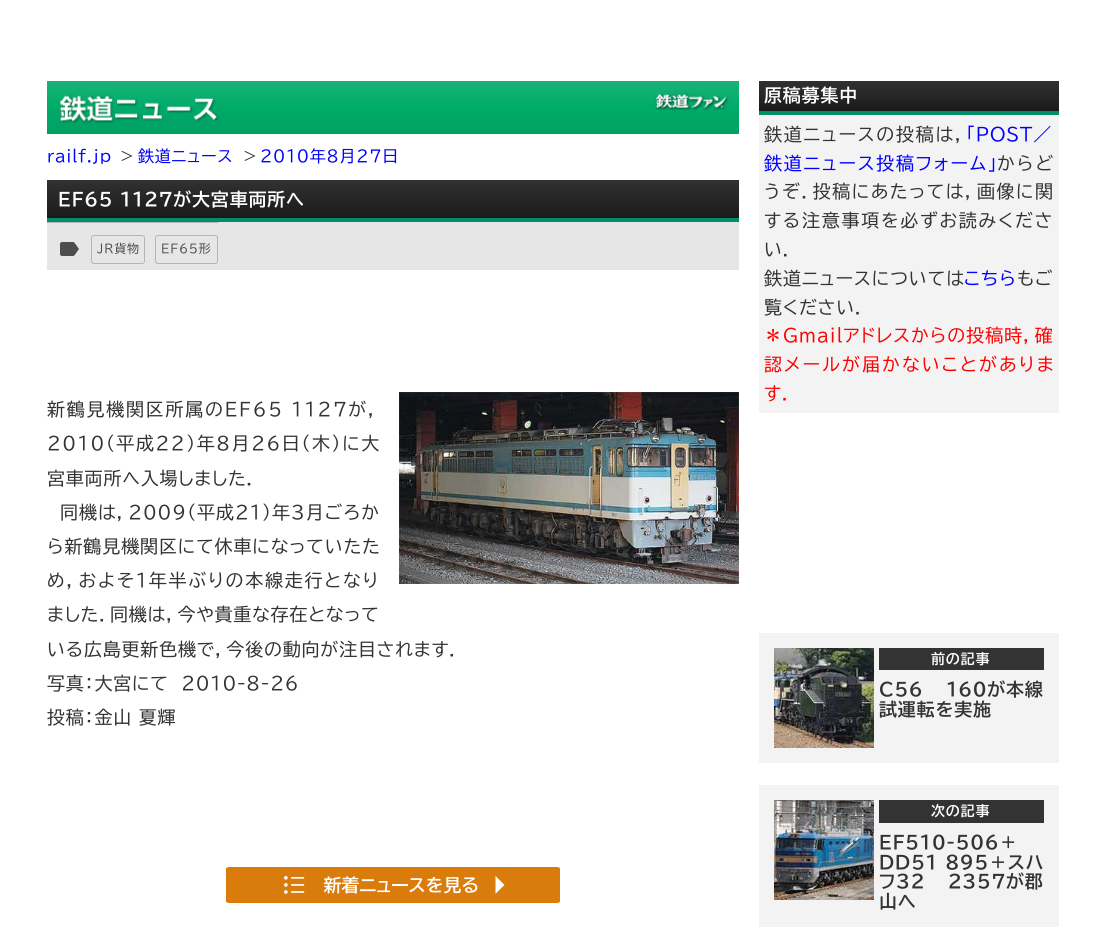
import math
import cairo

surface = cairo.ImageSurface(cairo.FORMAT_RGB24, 1105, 927)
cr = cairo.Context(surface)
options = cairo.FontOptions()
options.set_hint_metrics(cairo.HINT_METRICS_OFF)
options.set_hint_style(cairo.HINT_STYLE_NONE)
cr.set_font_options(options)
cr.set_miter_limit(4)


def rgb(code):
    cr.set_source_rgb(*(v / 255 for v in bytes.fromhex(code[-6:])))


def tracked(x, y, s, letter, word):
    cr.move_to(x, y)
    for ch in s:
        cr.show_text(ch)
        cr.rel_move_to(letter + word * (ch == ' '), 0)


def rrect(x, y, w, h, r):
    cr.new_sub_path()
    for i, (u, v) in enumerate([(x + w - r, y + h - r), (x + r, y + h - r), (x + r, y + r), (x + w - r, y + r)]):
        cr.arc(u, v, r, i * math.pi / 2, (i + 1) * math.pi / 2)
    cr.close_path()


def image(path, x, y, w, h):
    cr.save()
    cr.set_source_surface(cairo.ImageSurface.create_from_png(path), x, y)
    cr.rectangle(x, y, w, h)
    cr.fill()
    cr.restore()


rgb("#ffffff")
cr.paint()
image("img/1.png", 47, 81, 692, 53)
gradient = cairo.LinearGradient(393, 180, 393, 218)
gradient.add_color_stop_rgba(0, 0.192, 0.192, 0.192, 1)
gradient.add_color_stop_rgba(0.5, 0.149, 0.149, 0.149, 1)
gradient.add_color_stop_rgba(1, 0.102, 0.102, 0.102, 1)
cr.set_source(gradient)
cr.rectangle(47, 180, 692, 38)
cr.fill()
for x, y, w, h, color in [
    (47, 218, 692, 4, "#008f67"),
    (47, 222, 692, 48, "#e6e6e6"),
    (47, 222, 171, 1, "#b5b5b6"),
]:
    rgb(color)
    cr.rectangle(x, y, w, h)
    cr.fill()
image("img/2.png", 60, 242, 19, 14)
rrect(91.5, 235.5, 53, 28, 2.5)
cr.set_line_width(1)
cr.stroke()
rrect(155.5, 235.5, 62, 28, 2.5)
cr.stroke()
image("img/3.png", 399, 392, 340, 192)
image("img/4.png", 226, 867, 334, 36)
rgb("#f3f3f3")
cr.rectangle(759, 115, 300, 298)
cr.fill()
gradient = cairo.LinearGradient(909, 81, 909, 111)
gradient.add_color_stop_rgba(0, 0.188, 0.188, 0.188, 1)
gradient.add_color_stop_rgba(0.5, 0.149, 0.149, 0.149, 1)
gradient.add_color_stop_rgba(1, 0.102, 0.102, 0.102, 1)
cr.set_source(gradient)
cr.rectangle(759, 81, 300, 30)
cr.fill()
rgb("#008f67")
cr.rectangle(759, 111, 300, 4)
cr.fill()
rgb("#f3f3f3")
cr.rectangle(759, 633, 300, 130)
cr.fill()
image("img/5.png", 774, 648, 100, 100)
rgb("#333333")
cr.rectangle(879, 648, 165, 22)
cr.fill()
rgb("#f3f3f3")
cr.rectangle(759, 785, 300, 142)
cr.fill()
image("img/6.png", 774, 800, 100, 100)
rgb("#333333")
cr.rectangle(879, 800, 165, 23)
cr.fill()
cr.select_font_face("BIZ UDPGothic")
cr.set_font_size(16)
rgb("#0000ff")
tracked(47, 162, "railf.jp", 0.8, 0)
rgb("#333333")
tracked(119, 162, "＞", 0.8, 0)
rgb("#0000ff")
tracked(138, 162, "鉄道ニュース", 0.8, 0)
rgb("#333333")
tracked(242, 162, "＞", 0.8, 0)
rgb("#0000ff")
tracked(260, 162, "2010年8月27日", 0.8, 0)
cr.select_font_face("BIZ UDPGothic", cairo.FONT_SLANT_NORMAL, cairo.FONT_WEIGHT_BOLD)
cr.set_font_size(18)
rgb("#ffffff")
tracked(58, 206, "EF65 1127が大宮車両所へ", 0.8, 0)
cr.select_font_face("BIZ UDPGothic")
cr.set_font_size(12)
rgb("#4d4d4d")
tracked(97, 253, "JR貨物", 0.8, 0)
tracked(161, 253, "EF65形", 0.8, 0)
cr.set_font_size(18)
rgb("#333333")
tracked(47, 416, "新鶴見機関区所属のEF65 1127が，", 1.75, 0)
tracked(47, 450, "2010（平成22）年8月26日（木）に大", 1.6, 0)
tracked(47, 485, "宮車両所へ入場しました．", 0.8, 0)
tracked(60, 519, "同機は，2009（平成21）年3月ごろか", 1, 0)
tracked(47, 553, "ら新鶴見機関区にて休車になっていたた", 0.9, 0)
tracked(47, 587, "め，およそ1年半ぶりの本線走行となり", 1.75, 0)
for x, y, s in [
    (47, 621, "ました．同機は，今や貴重な存在となって"),
    (47, 656, "いる広島更新色機で，今後の動向が注目されます．"),
    (47, 690, "写真：大宮にて　2010-8-26"),
    (47, 724, "投稿：金山 夏輝"),
]:
    tracked(x, y, s, 0.8, 0)
cr.select_font_face("BIZ UDPGothic", cairo.FONT_SLANT_NORMAL, cairo.FONT_WEIGHT_BOLD)
rgb("#ffffff")
tracked(764, 102, "原稿募集中", 0.8, 0)
cr.select_font_face("BIZ UDPGothic")
rgb("#333333")
tracked(764, 141, "鉄道ニュースの投稿は，", 1.75, 0)
rgb("#0000ff")
tracked(966, 141, "「POST／", 0.8, 0)
tracked(764, 170, "鉄道ニュース投稿フォーム」", 1.75, 0)
rgb("#333333")
tracked(997, 170, "からど", 2, 0)
tracked(764, 198, "うぞ．投稿にあたっては，画像に関", 1.5, 0)
tracked(764, 227, "する注意事項を必ずお読みくださ", 1.75, 0)
tracked(764, 256, "い．", 0.8, 0)
tracked(764, 285, "鉄道ニュースについては", 1, 0)
rgb("#0000ff")
tracked(964, 285, "こちら", 1, 0)
rgb("#333333")
tracked(1017, 285, "もご", 0.8, 0)
tracked(764, 314, "覧ください．", 0.8, 0)
rgb("#ff0000")
tracked(764, 342, "＊Gmailアドレスからの投稿時，確", 1, 0)
tracked(764, 371, "認メールが届かないことがありま", 2.1, 0)
tracked(764, 400, "す．", 0.8, 0)
cr.select_font_face("BIZ UDPGothic", cairo.FONT_SLANT_NORMAL, cairo.FONT_WEIGHT_BOLD)
cr.set_font_size(14)
rgb("#ffffff")
tracked(931, 664, "前の記事", 0.8, 0)
cr.set_font_size(18)
rgb("#333333")
tracked(879, 696, "C56 160が本線", 0.8, 16)
tracked(879, 716, "試運転を実施", 0.8, 0)
cr.set_font_size(14)
rgb("#ffffff")
tracked(931, 816, "次の記事", 0.8, 0)
cr.set_font_size(18)
rgb("#333333")
tracked(879, 849, "EF510-506＋", 0.8, 0)
tracked(879, 869, "DD51 895＋スハ", 0.8, 1)
tracked(879, 888, "フ32 2357が郡", 0.8, 16)
tracked(879, 908, "山へ", 0.8, 0)
surface.write_to_png("page.png")
